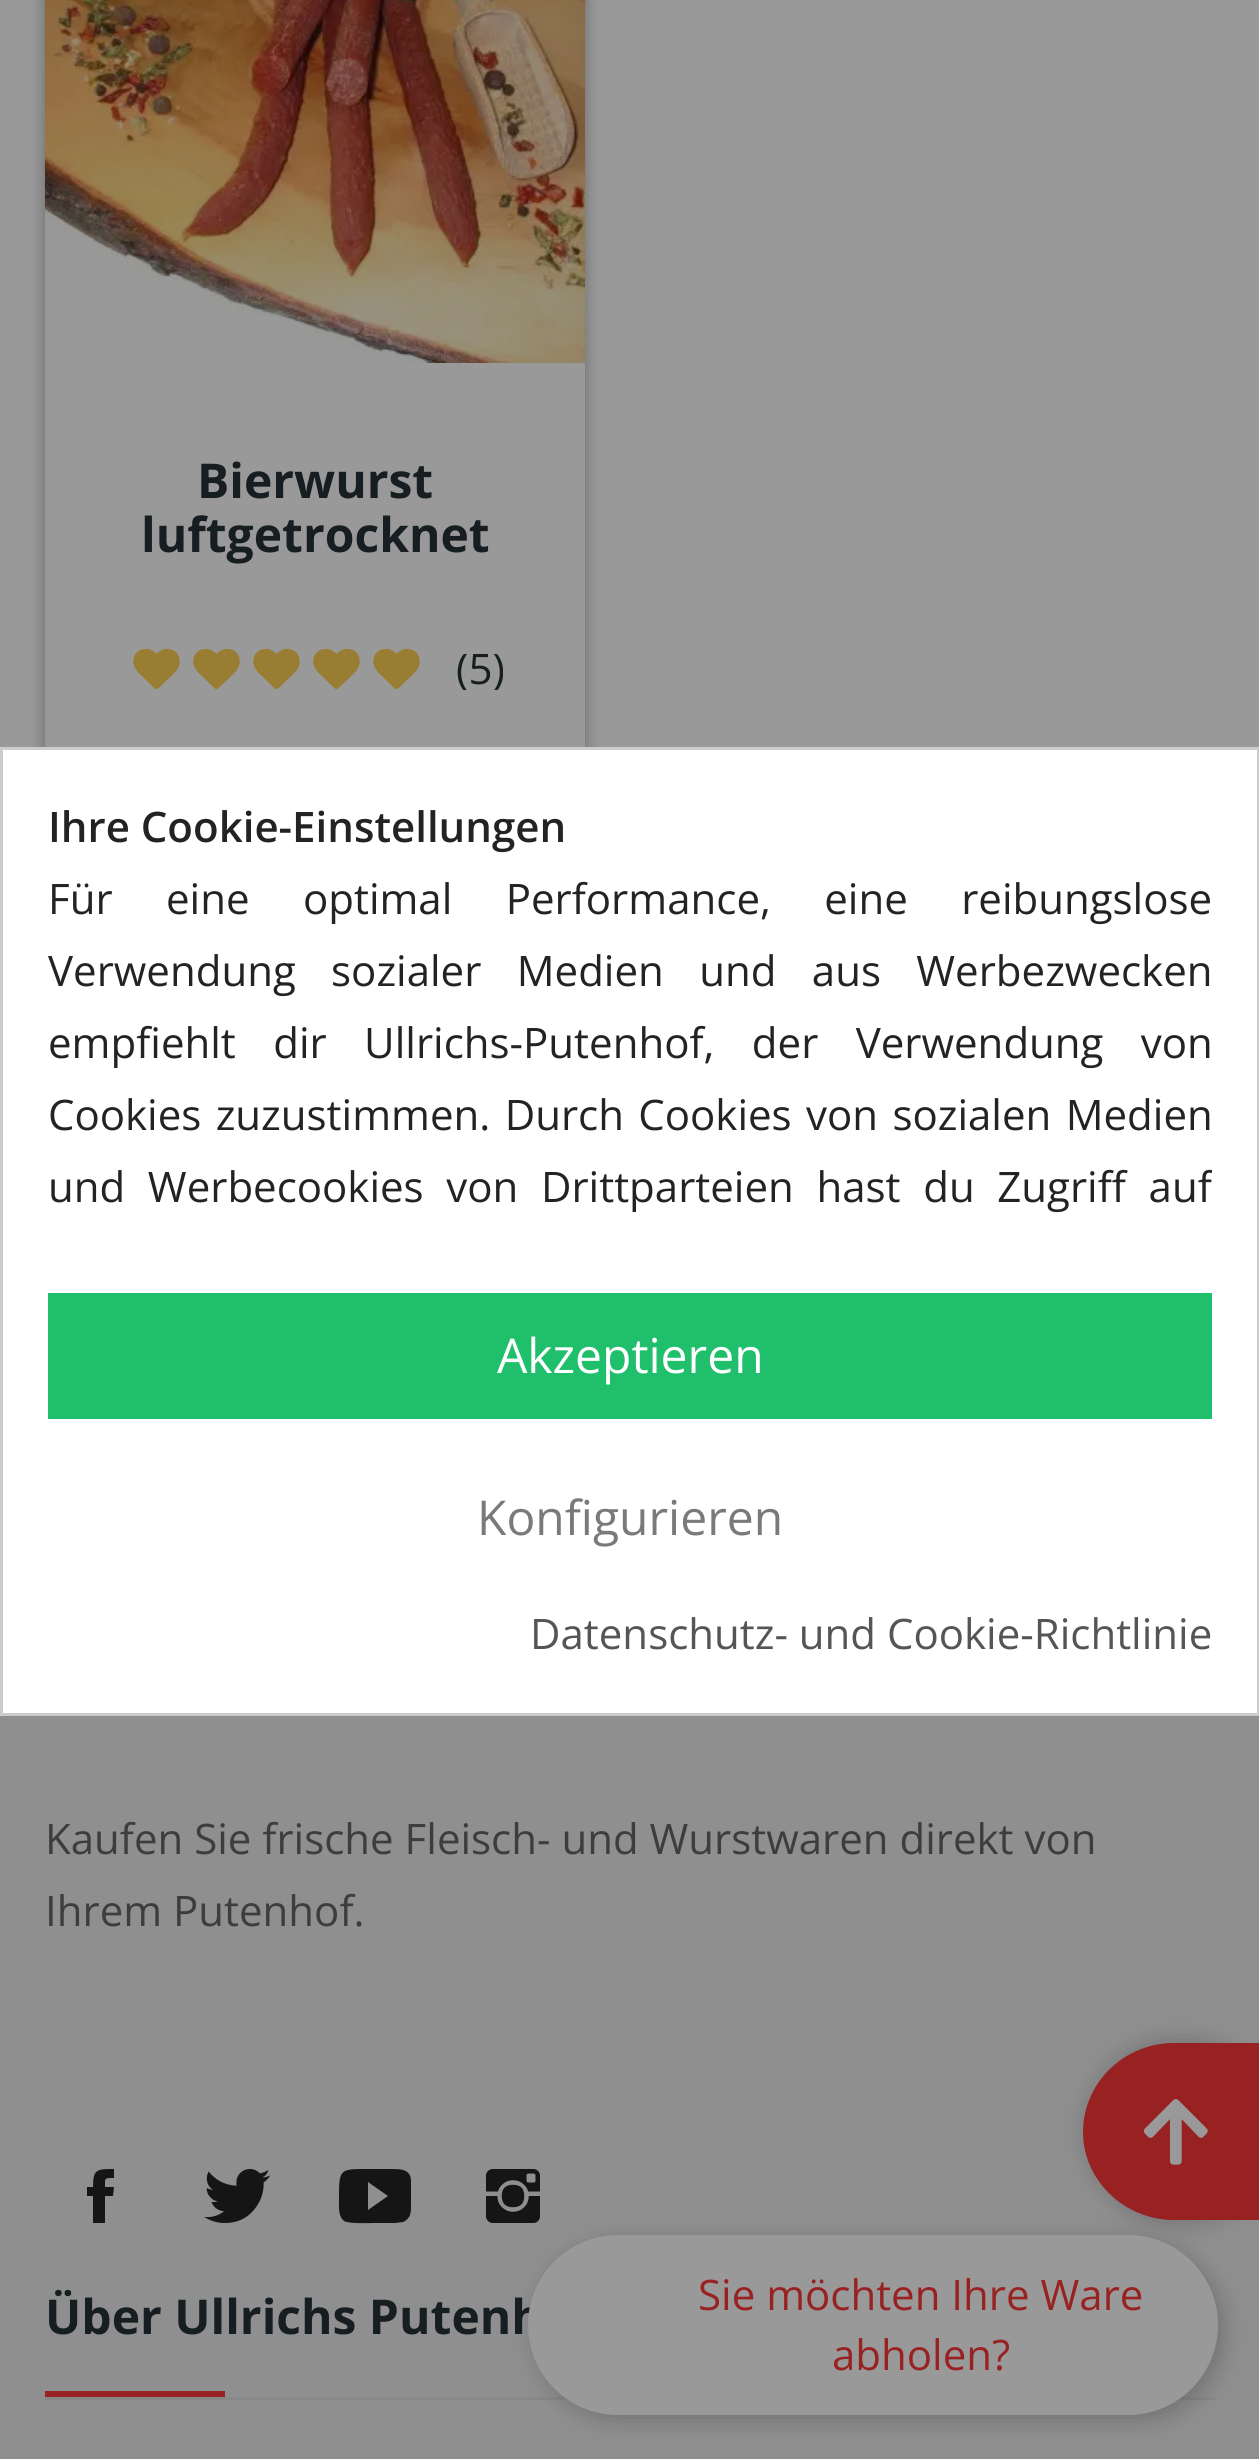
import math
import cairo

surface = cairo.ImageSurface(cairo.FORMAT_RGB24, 1259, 2459)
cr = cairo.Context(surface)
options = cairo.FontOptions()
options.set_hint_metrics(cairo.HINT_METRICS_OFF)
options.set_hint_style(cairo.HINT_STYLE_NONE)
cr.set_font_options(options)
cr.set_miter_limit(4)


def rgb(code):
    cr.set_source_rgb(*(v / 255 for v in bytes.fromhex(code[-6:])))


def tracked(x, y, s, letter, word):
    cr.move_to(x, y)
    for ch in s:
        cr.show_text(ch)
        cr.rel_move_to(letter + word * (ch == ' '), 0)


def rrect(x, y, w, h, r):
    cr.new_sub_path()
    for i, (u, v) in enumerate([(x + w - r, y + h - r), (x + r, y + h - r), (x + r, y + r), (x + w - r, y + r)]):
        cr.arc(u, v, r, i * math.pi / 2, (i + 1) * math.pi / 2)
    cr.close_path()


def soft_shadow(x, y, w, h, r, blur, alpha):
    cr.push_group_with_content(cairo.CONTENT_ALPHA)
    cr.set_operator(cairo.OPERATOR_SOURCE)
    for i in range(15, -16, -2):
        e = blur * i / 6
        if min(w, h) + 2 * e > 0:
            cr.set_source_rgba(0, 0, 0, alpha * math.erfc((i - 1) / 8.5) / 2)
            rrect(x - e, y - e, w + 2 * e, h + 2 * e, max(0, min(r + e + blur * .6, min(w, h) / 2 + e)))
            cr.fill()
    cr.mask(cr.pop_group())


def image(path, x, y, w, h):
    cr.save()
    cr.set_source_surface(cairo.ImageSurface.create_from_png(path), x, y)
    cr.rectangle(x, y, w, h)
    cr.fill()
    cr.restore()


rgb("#999999")
cr.paint()
rgb("#686868")
soft_shadow(45, -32, 540, 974, 9, 7.5, 1)
image("img/1.png", 45, 0, 540, 363)
rgb("#999999")
cr.rectangle(45, 363, 540, 384)
cr.fill()
image("img/2.png", 133, 648, 47, 42)
image("img/2.png", 193, 648, 47, 42)
image("img/2.png", 253, 648, 47, 42)
image("img/2.png", 313, 648, 47, 42)
image("img/2.png", 373, 648, 47, 42)
rgb("#8f8f8f")
cr.rectangle(0, 1716, 1259, 743)
cr.fill()
rgb("#151515")
cr.new_path()
cr.move_to(105, 2187)
cr.line_to(114, 2187)
cr.line_to(113, 2196)
cr.line_to(105, 2196)
cr.line_to(105, 2223)
cr.line_to(93, 2223)
cr.line_to(93, 2196)
cr.line_to(87, 2196)
cr.line_to(87, 2187)
cr.line_to(93, 2187)
cr.curve_to(93, 2169, 97, 2169, 114, 2169)
cr.line_to(114, 2178)
cr.curve_to(104, 2178, 105, 2178, 105, 2187)
cr.close_path()
cr.fill()
image("img/3.png", 204, 2169, 67, 54)
cr.new_path()
cr.move_to(411, 2181)
cr.line_to(411, 2205)
cr.curve_to(411, 2209, 411, 2212, 410, 2215)
cr.curve_to(409, 2218, 406, 2221, 403, 2222)
cr.line_to(395, 2223)
cr.line_to(375, 2223)
cr.curve_to(369, 2223, 349, 2224, 344, 2221)
cr.curve_to(338, 2216, 339, 2207, 339, 2200)
cr.curve_to(339, 2168, 339, 2169, 370, 2169)
cr.line_to(389, 2169)
cr.curve_to(398, 2169, 411, 2168, 411, 2181)
cr.close_path()
cr.move_to(368, 2210)
cr.line_to(388, 2196)
cr.line_to(368, 2182)
cr.close_path()
cr.fill()
image("img/4.png", 486, 2169, 54, 54)
rgb("#888888")
cr.rectangle(45, 2397, 1170, 3)
cr.fill()
rgb("#982122")
cr.rectangle(45, 2391, 180, 6)
cr.fill()
rgb("#ffffff")
cr.rectangle(1.5, 748.5, 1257, 966)
cr.fill_preserve()
rgb("#cccccc")
cr.set_line_width(3)
cr.stroke()
rgb("#20bf6b")
cr.rectangle(48, 1293, 1164, 126)
cr.fill()
rgb("#000000")
soft_shadow(1086, 2040, 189, 183, 91.5, 12, 0.2)
rgb("#982122")
cr.new_path()
cr.move_to(1174, 2043)
cr.line_to(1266, 2043)
cr.line_to(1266, 2220)
cr.line_to(1174, 2220)
cr.curve_to(1124, 2220, 1083, 2180, 1083, 2132)
cr.curve_to(1083, 2083, 1124, 2043, 1174, 2043)
cr.close_path()
cr.fill()
image("img/5.png", 1143, 2099, 65, 66)
rgb("#000000")
soft_shadow(534, 2241, 690, 180, 90, 12, 0.2)
cr.select_font_face("Open Sans", cairo.FONT_SLANT_NORMAL, cairo.FONT_WEIGHT_BOLD)
cr.set_font_size(48)
rgb("#161e21")
cr.move_to(197, 498)
cr.show_text("Bierwurst")
cr.move_to(141, 552)
cr.show_text("luftgetrocknet")
cr.save()
cr.rectangle(456, 648, 48, 42)
cr.clip()
cr.select_font_face("Open Sans")
cr.set_font_size(42)
cr.move_to(456, 684)
cr.show_text("(5)")
cr.restore()
cr.select_font_face("Open Sans")
cr.set_font_size(42)
rgb("#3d3d3d")
cr.move_to(45, 1854)
cr.show_text("Kaufen Sie frische Fleisch- und Wurstwaren direkt von")
cr.move_to(45, 1926)
cr.show_text("Ihrem Putenhof.")
cr.select_font_face("Open Sans", cairo.FONT_SLANT_NORMAL, cairo.FONT_WEIGHT_BOLD)
cr.set_font_size(48)
rgb("#161e21")
cr.move_to(45, 2334)
cr.show_text("Über Ullrichs Putenh")
cr.select_font_face("Open Sans SemiBold")
cr.set_font_size(42)
rgb("#232323")
cr.move_to(48, 842)
cr.show_text("Ihre Cookie-Einstellungen")
cr.select_font_face("Open Sans")
tracked(48, 914, "Für eine optimal Performance, eine reibungslose", 0, 42.5)
tracked(48, 986, "Verwendung sozialer Medien und aus Werbezwecken", 0, 24.5)
tracked(48, 1058, "empfiehlt dir Ullrichs-Putenhof, der Verwendung von", 0, 26.5)
tracked(48, 1130, "Cookies zuzustimmen. Durch Cookies von sozialen Medien", 0, 3.5)
cr.save()
cr.rectangle(48, 864, 1164, 369)
cr.clip()
tracked(48, 1202, "und Werbecookies von Drittparteien hast du Zugriff auf", 0, 11.75)
cr.restore()
cr.set_font_size(48)
rgb("#ffffff")
cr.move_to(497, 1373)
cr.show_text("Akzeptieren")
rgb("#7a7a7a")
cr.move_to(477, 1535)
cr.show_text("Konfigurieren")
cr.set_font_size(42)
rgb("#555555")
cr.move_to(530, 1649)
cr.show_text("Datenschutz- und Cookie-Richtlinie")
rgb("#999999")
rrect(528, 2235, 690, 180, 90)
cr.fill()
rgb("#982122")
cr.move_to(698, 2310)
cr.show_text("Sie möchten Ihre Ware")
cr.move_to(832, 2370)
cr.show_text("abholen?")
surface.write_to_png("page.png")
